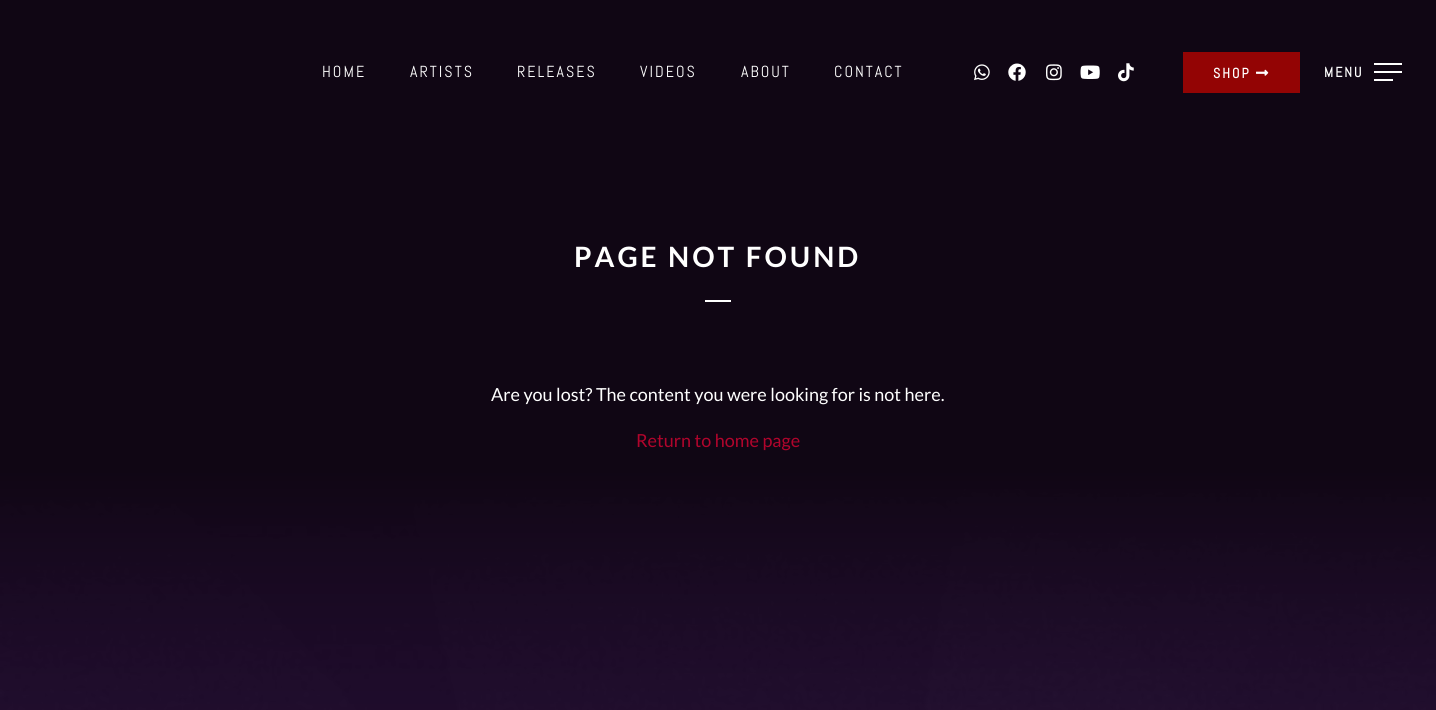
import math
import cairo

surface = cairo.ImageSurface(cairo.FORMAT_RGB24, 1436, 710)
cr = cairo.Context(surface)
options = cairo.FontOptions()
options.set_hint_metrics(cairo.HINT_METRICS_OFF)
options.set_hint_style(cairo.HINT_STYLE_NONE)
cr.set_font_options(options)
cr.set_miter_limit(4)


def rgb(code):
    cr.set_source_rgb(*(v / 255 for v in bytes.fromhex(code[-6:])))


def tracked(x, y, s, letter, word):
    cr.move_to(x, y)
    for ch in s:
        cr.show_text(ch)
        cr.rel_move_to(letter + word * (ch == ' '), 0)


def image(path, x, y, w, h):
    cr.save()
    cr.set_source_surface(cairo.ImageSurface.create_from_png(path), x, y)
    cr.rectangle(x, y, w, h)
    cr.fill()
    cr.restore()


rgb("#100614")
cr.paint()
image("img/1.png", 974, 64, 16, 17)
image("img/2.png", 1008, 63, 18, 18)
image("img/3.png", 1046, 64, 16, 17)
image("img/4.png", 1080, 65, 20, 14)
image("img/5.png", 1118, 63, 16, 19)
rgb("#930404")
cr.rectangle(1183, 52, 117, 41)
cr.fill()
image("img/6.png", 1256, 69, 13, 7)
for x, y, w, h, color in [
    (1374, 71, 28, 2, "#ffffff"),
    (1374, 63, 28, 2, "#ffffff"),
    (1374, 79, 19, 2, "#ffffff"),
    (705, 300, 26, 2, "#ffffff"),
]:
    rgb(color)
    cr.rectangle(x, y, w, h)
    cr.fill()
image("img/7.png", 0, 469, 1436, 241)
cr.select_font_face("Abel")
cr.set_font_size(16)
for x, y, s in [
    (322, 77, "HOME"),
    (410, 77, "ARTISTS"),
    (517, 77, "RELEASES"),
    (640, 77, "VIDEOS"),
    (741, 77, "ABOUT"),
    (834, 77, "CONTACT"),
]:
    tracked(x, y, s, 2, 0)
cr.select_font_face("Abel", cairo.FONT_SLANT_NORMAL, cairo.FONT_WEIGHT_BOLD)
cr.set_font_size(14)
tracked(1213, 78, "SHOP", 2, 0)
tracked(1324, 77, "MENU", 2, 0)
cr.select_font_face("Lato", cairo.FONT_SLANT_NORMAL, cairo.FONT_WEIGHT_BOLD)
cr.set_font_size(28)
tracked(574, 267, "PAGE NOT FOUND", 3, 0)
cr.select_font_face("Lato")
cr.set_font_size(18)
cr.move_to(491, 401)
cr.show_text("Are you lost? The content you were looking for is not here.")
rgb("#b1042c")
cr.move_to(636, 447)
cr.show_text("Return to home page")
surface.write_to_png("page.png")
